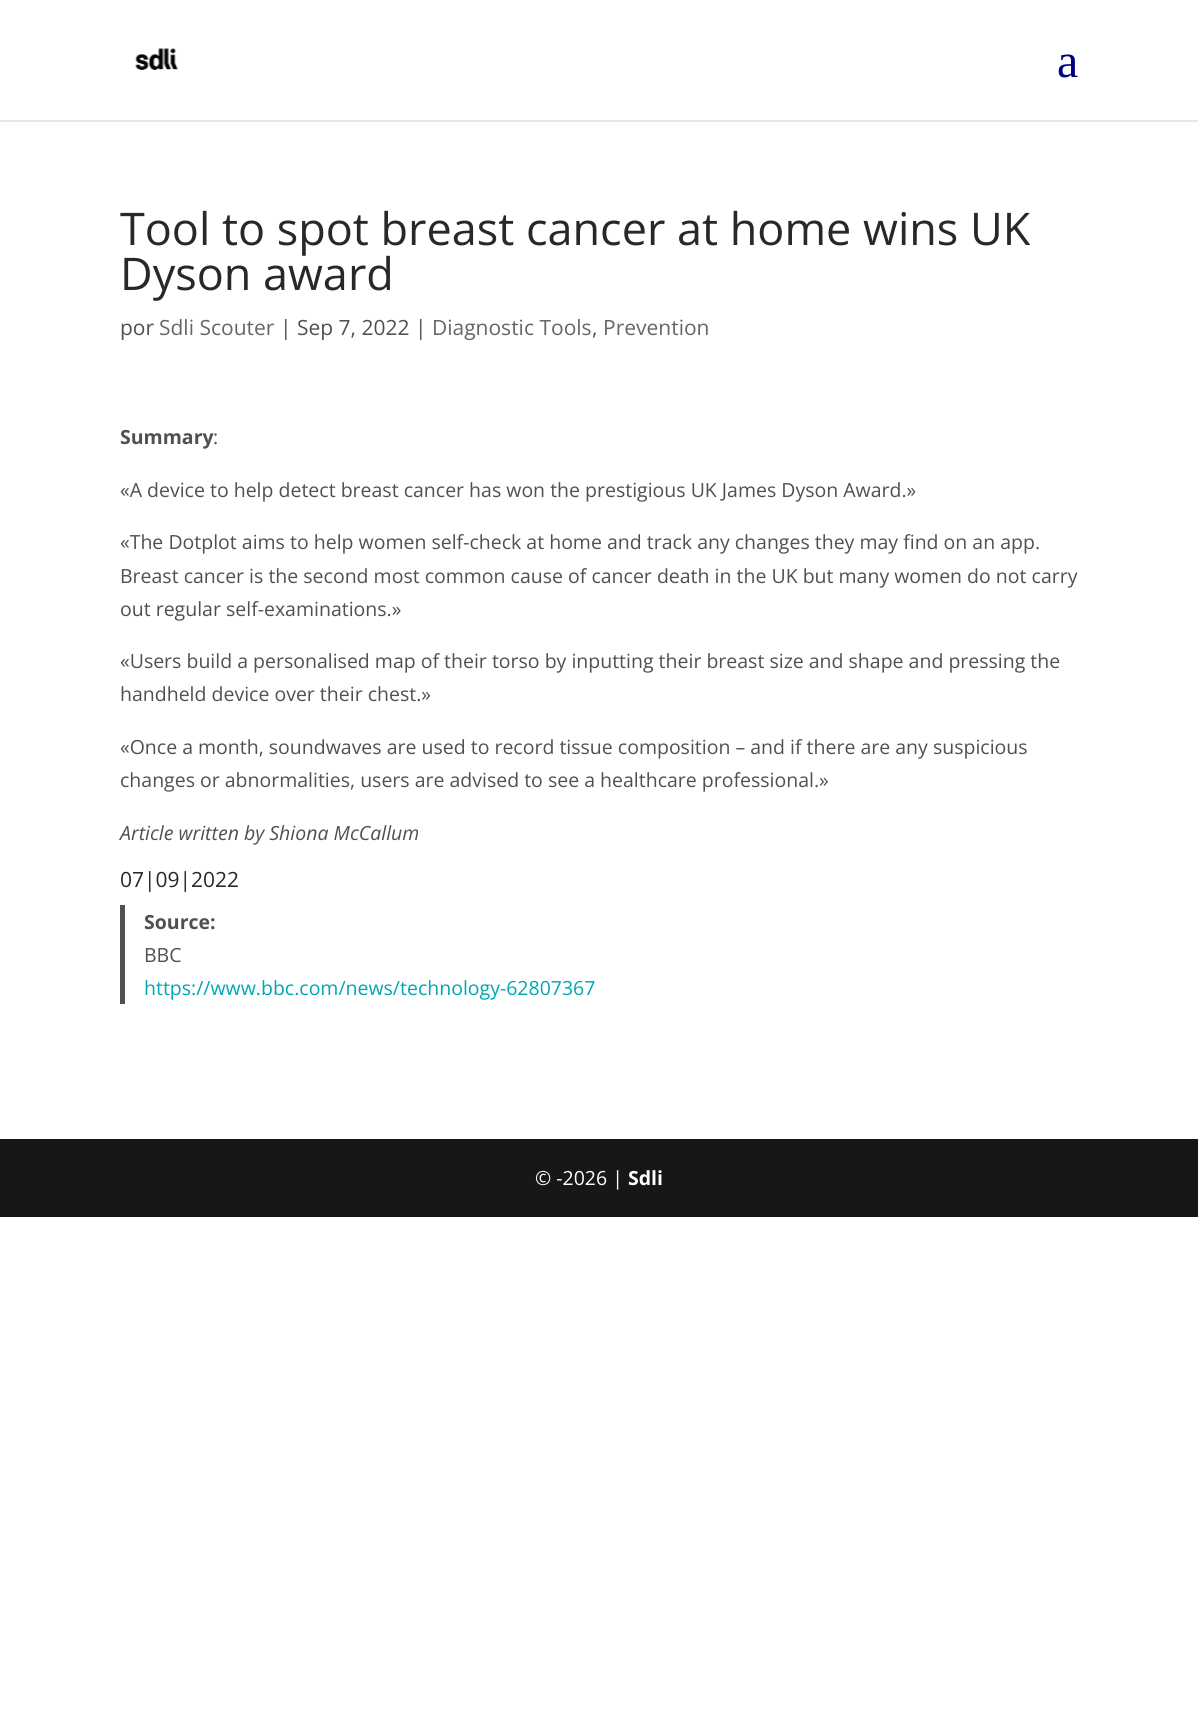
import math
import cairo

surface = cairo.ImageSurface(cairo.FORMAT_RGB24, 1198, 1715)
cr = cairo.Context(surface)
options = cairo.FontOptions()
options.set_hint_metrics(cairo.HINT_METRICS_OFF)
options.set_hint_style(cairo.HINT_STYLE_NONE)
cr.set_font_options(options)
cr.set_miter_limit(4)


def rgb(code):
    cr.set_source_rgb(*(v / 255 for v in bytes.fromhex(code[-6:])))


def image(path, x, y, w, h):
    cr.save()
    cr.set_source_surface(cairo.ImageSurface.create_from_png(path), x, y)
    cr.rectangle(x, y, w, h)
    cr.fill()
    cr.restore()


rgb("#ffffff")
cr.paint()
rgb("#e6e6e6")
cr.new_path()
cr.move_to(0, 120)
cr.line_to(0, 122)
cr.line_to(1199, 122)
cr.line_to(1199, 2)
cr.line_to(1198, 2)
cr.line_to(1198, 120)
cr.close_path()
cr.fill()
image("img/1.png", 135, 48, 43, 22)
rgb("#505050")
cr.rectangle(120, 905, 5, 99)
cr.fill()
rgb("#171717")
cr.rectangle(0, 1139, 1198, 78)
cr.fill()
cr.select_font_face("Liberation Serif")
cr.set_font_size(48)
rgb("#000085")
cr.move_to(1057, 77)
cr.show_text("a")
cr.select_font_face("Open Sans")
cr.set_font_size(45)
rgb("#282828")
cr.move_to(120, 245)
cr.show_text("Tool to spot breast cancer at home wins UK")
cr.move_to(120, 290)
cr.show_text("Dyson award")
cr.set_font_size(21)
rgb("#505050")
cr.move_to(120, 335)
cr.show_text("por")
rgb("#666666")
cr.move_to(159, 335)
cr.show_text("Sdli Scouter")
rgb("#505050")
cr.move_to(280, 335)
cr.show_text("| Sep 7, 2022 |")
rgb("#666666")
cr.move_to(432, 335)
cr.show_text("Diagnostic Tools")
rgb("#505050")
cr.move_to(592, 335)
cr.show_text(",")
rgb("#666666")
cr.move_to(603, 335)
cr.show_text("Prevention")
cr.select_font_face("Open Sans", cairo.FONT_SLANT_NORMAL, cairo.FONT_WEIGHT_BOLD)
cr.set_font_size(19.5)
rgb("#505050")
cr.move_to(120, 444)
cr.show_text("Summary")
cr.select_font_face("Open Sans")
for x, y, s in [
    (213, 444, ":"),
    (120, 497, "«A device to help detect breast cancer has won the prestigious UK James Dyson Award.»"),
    (120, 549, "«The Dotplot aims to help women self-check at home and track any changes they may find on an app."),
    (120, 583, "Breast cancer is the second most common cause of cancer death in the UK but many women do not carry"),
    (120, 616, "out regular self-examinations.»"),
    (120, 668, "«Users build a personalised map of their torso by inputting their breast size and shape and pressing the"),
    (120, 701, "handheld device over their chest.»"),
    (120, 754, "«Once a month, soundwaves are used to record tissue composition – and if there are any suspicious"),
    (120, 787, "changes or abnormalities, users are advised to see a healthcare professional.»"),
]:
    cr.move_to(x, y)
    cr.show_text(s)
cr.select_font_face("Open Sans", cairo.FONT_SLANT_ITALIC)
cr.move_to(120, 840)
cr.show_text("Article written by Shiona McCallum")
cr.select_font_face("Open Sans")
cr.set_font_size(21)
rgb("#282828")
cr.move_to(120, 887)
cr.show_text("07|09|2022")
cr.select_font_face("Open Sans", cairo.FONT_SLANT_NORMAL, cairo.FONT_WEIGHT_BOLD)
cr.set_font_size(19.5)
rgb("#505050")
cr.move_to(144, 929)
cr.show_text("Source:")
cr.select_font_face("Open Sans")
cr.move_to(144, 962)
cr.show_text("BBC")
rgb("#00a6b2")
cr.move_to(144, 995)
cr.show_text("https://www.bbc.com/news/technology-62807367")
rgb("#ffffff")
cr.move_to(535, 1185)
cr.show_text("© -2026 |")
cr.select_font_face("Open Sans", cairo.FONT_SLANT_NORMAL, cairo.FONT_WEIGHT_BOLD)
cr.move_to(628, 1185)
cr.show_text("Sdli")
surface.write_to_png("page.png")
